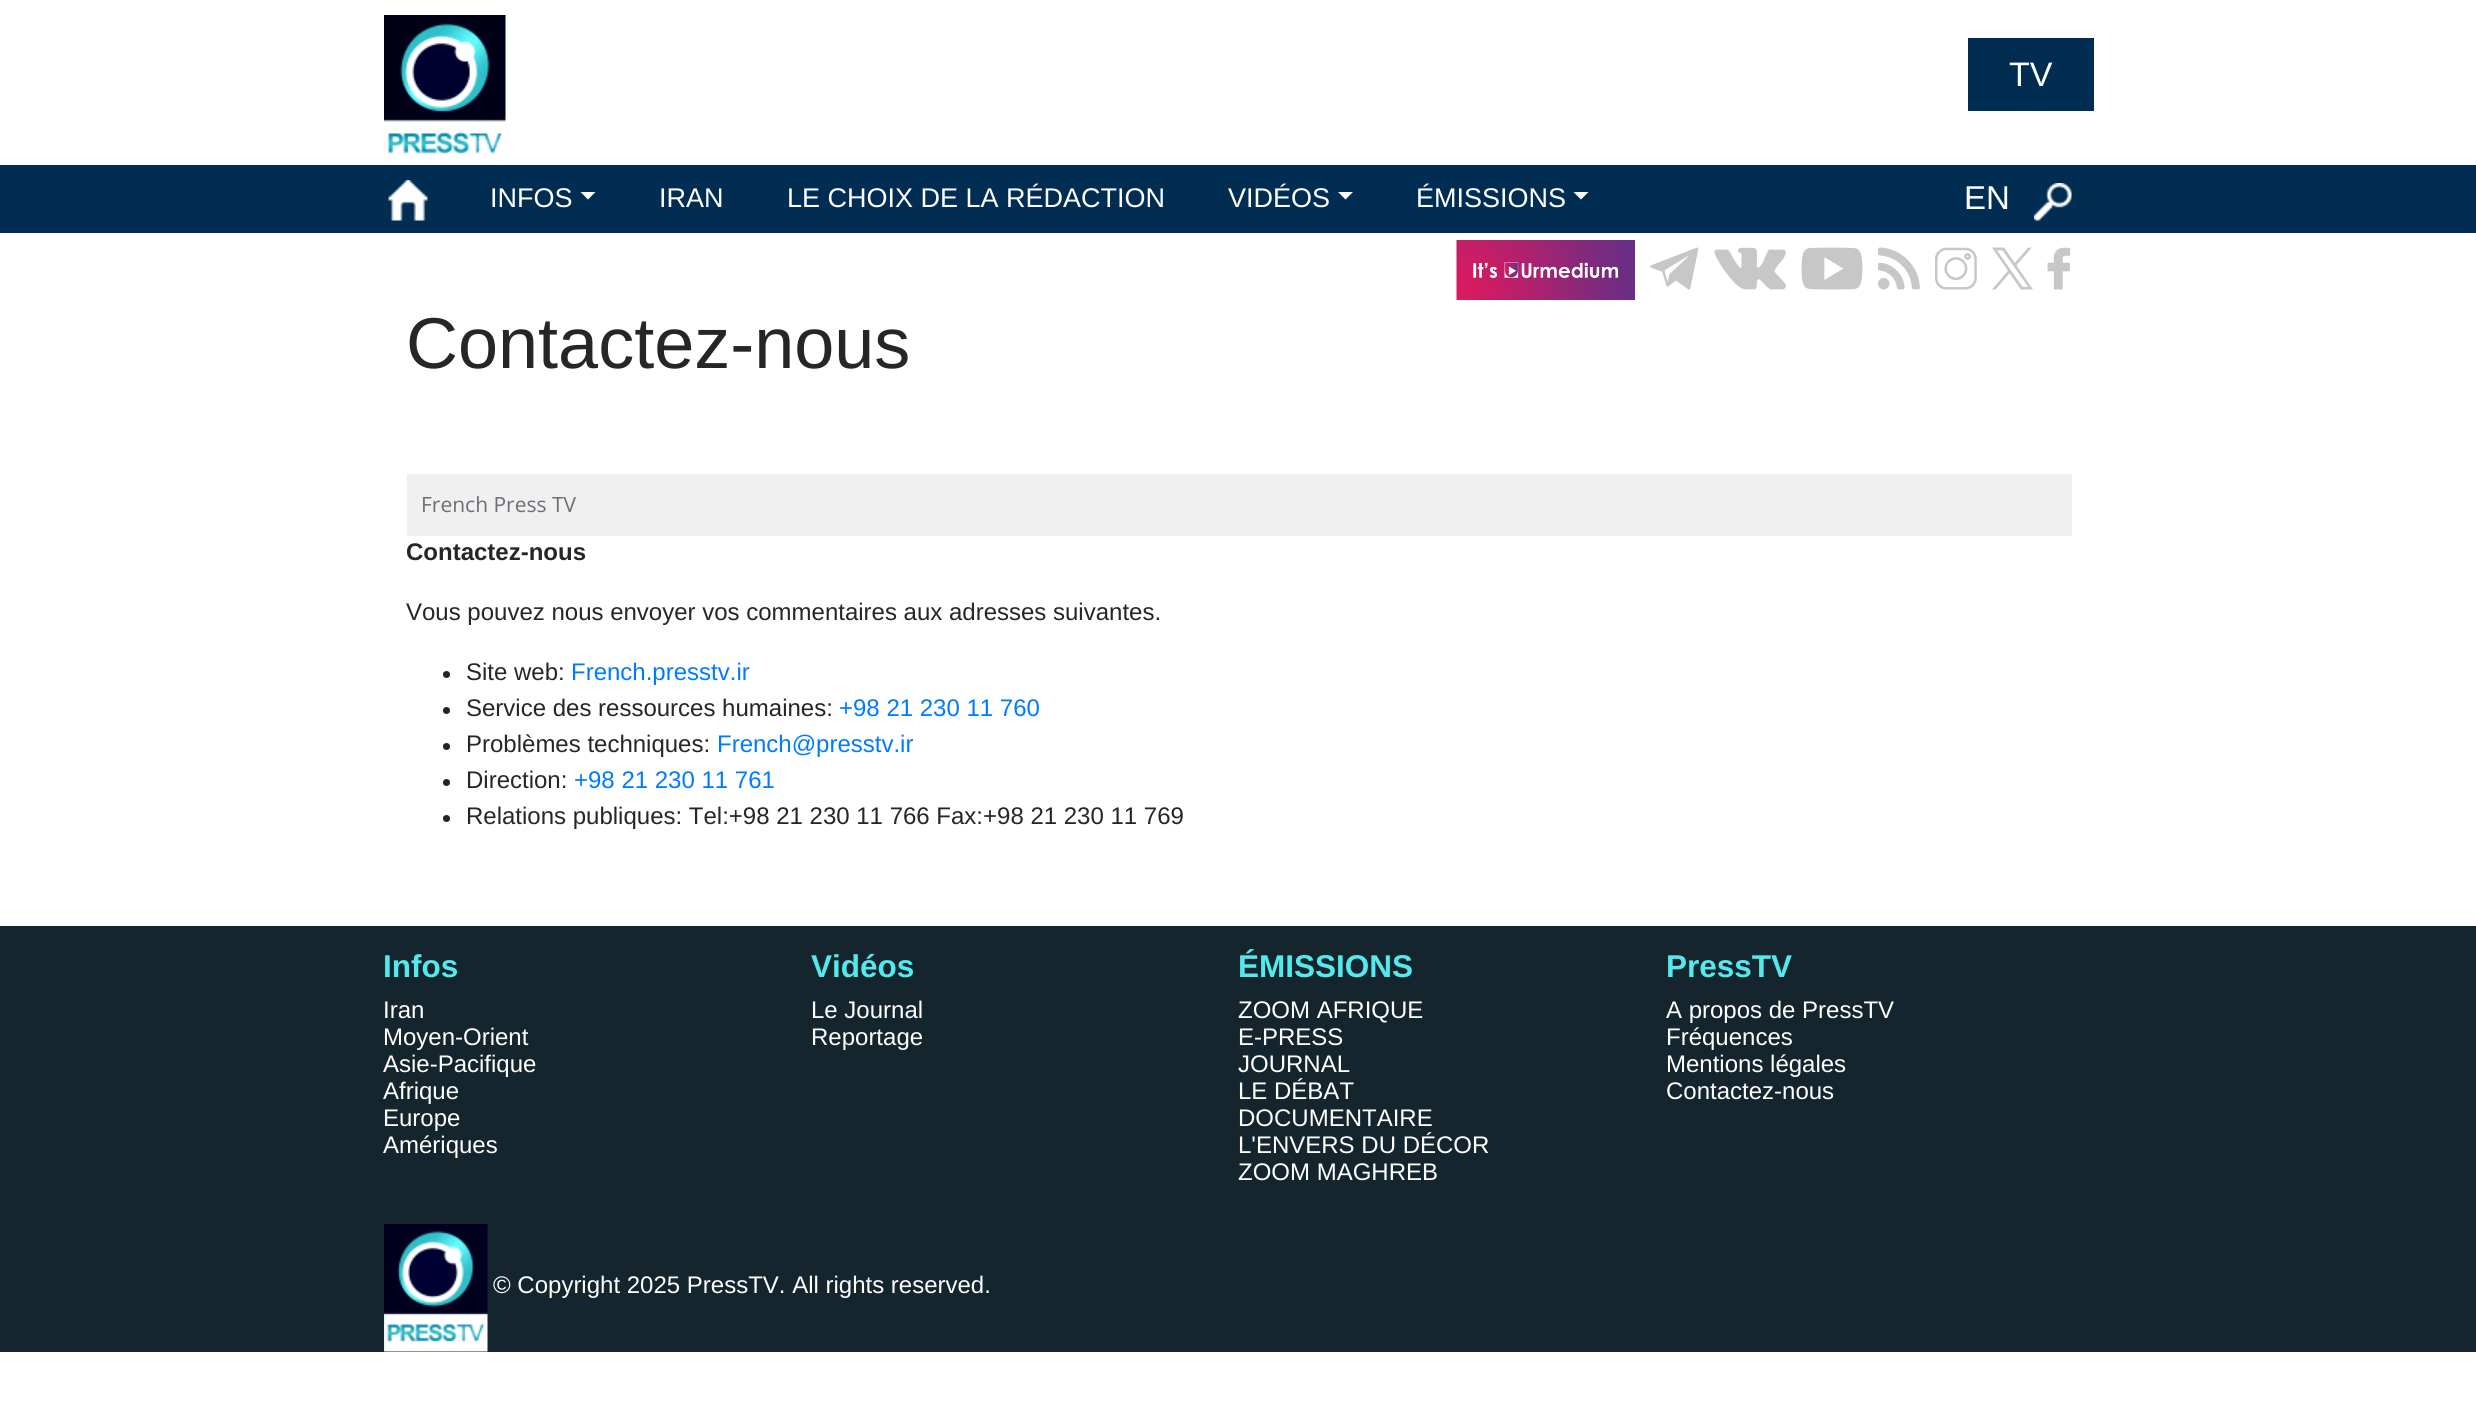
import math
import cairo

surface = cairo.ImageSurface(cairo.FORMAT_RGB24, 2476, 1406)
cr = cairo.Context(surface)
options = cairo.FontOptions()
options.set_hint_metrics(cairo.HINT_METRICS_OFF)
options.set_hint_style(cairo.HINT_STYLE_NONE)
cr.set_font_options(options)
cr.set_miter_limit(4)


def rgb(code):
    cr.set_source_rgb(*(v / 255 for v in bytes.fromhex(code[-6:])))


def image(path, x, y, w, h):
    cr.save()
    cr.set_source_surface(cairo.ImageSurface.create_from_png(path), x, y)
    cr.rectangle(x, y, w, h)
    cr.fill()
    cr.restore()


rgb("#ffffff")
cr.paint()
image("img/1.png", 384, 15, 122, 139)
rgb("#002d51")
cr.rectangle(1968, 38, 126, 73)
cr.fill()
cr.rectangle(0, 165, 2476, 68)
cr.fill()
image("img/2.png", 388, 180, 40, 41)
rgb("#ffffff")
cr.new_path()
cr.move_to(580.5, 192)
cr.line_to(595.5, 192)
cr.line_to(588, 199.5)
cr.close_path()
cr.fill()
cr.new_path()
cr.move_to(1338, 192)
cr.line_to(1353, 192)
cr.line_to(1345.5, 199.5)
cr.close_path()
cr.fill()
cr.new_path()
cr.move_to(1573.5, 192)
cr.line_to(1588.5, 192)
cr.line_to(1581, 199.5)
cr.close_path()
cr.fill()
image("img/3.png", 2034, 183, 38, 38)
image("img/4.png", 1456, 240, 179, 60)
image("img/5.png", 1650, 247, 49, 43)
image("img/6.png", 1714, 247, 72, 43)
image("img/7.png", 1801, 247, 62, 43)
image("img/8.png", 1878, 247, 42, 43)
image("img/9.png", 1935, 247, 42, 43)
image("img/10.png", 1992, 247, 41, 43)
image("img/11.png", 2047, 247, 24, 43)
rgb("#f0f0f0")
cr.rectangle(407, 474, 1665, 62)
cr.fill()
rgb("#212529")
cr.arc(446.5, 674.5, 3.5, 0, 2 * math.pi)
cr.fill()
cr.arc(446.5, 710.5, 3.5, 0, 2 * math.pi)
cr.fill()
cr.arc(446.5, 746.5, 3.5, 0, 2 * math.pi)
cr.fill()
cr.arc(446.5, 782.5, 3.5, 0, 2 * math.pi)
cr.fill()
cr.arc(446.5, 818.5, 3.5, 0, 2 * math.pi)
cr.fill()
rgb("#14252d")
cr.rectangle(0, 926, 2476, 426)
cr.fill()
image("img/12.png", 384, 1224, 104, 128)
cr.select_font_face("Liberation Sans")
cr.set_font_size(34)
rgb("#ffffff")
cr.move_to(2009, 86)
cr.show_text("TV")
cr.set_font_size(27)
for x, y, s in [
    (490, 207, "INFOS"),
    (659, 207, "IRAN"),
    (787, 207, "LE CHOIX DE LA RÉDACTION"),
    (1228, 207, "VIDÉOS"),
    (1416, 207, "ÉMISSIONS"),
]:
    cr.move_to(x, y)
    cr.show_text(s)
cr.set_font_size(33)
cr.move_to(1964, 209)
cr.show_text("EN")
cr.set_font_size(72)
rgb("#262626")
cr.move_to(406, 368)
cr.show_text("Contactez-nous")
cr.select_font_face("Open Sans")
cr.set_font_size(21)
rgb("#6e6e76")
cr.move_to(421, 512)
cr.show_text("French Press TV")
cr.select_font_face("Liberation Sans", cairo.FONT_SLANT_NORMAL, cairo.FONT_WEIGHT_BOLD)
cr.set_font_size(24)
rgb("#262626")
cr.move_to(406, 560)
cr.show_text("Contactez-nous")
cr.select_font_face("Liberation Sans")
cr.move_to(406, 620)
cr.show_text("Vous pouvez nous envoyer vos commentaires aux adresses suivantes.")
cr.move_to(466, 680)
cr.show_text("Site web:")
rgb("#007bff")
cr.move_to(571, 680)
cr.show_text("French.presstv.ir")
rgb("#262626")
cr.move_to(466, 716)
cr.show_text("Service des ressources humaines:")
rgb("#007bff")
cr.move_to(839, 716)
cr.show_text("+98 21 230 11 760")
rgb("#262626")
cr.move_to(466, 752)
cr.show_text("Problèmes techniques:")
rgb("#007bff")
cr.move_to(717, 752)
cr.show_text("French@presstv.ir")
rgb("#262626")
cr.move_to(466, 788)
cr.show_text("Direction:")
rgb("#007bff")
cr.move_to(574, 788)
cr.show_text("+98 21 230 11 761")
rgb("#262626")
cr.move_to(466, 824)
cr.show_text("Relations publiques: Tel:+98 21 230 11 766 Fax:+98 21 230 11 769")
cr.select_font_face("Liberation Sans", cairo.FONT_SLANT_NORMAL, cairo.FONT_WEIGHT_BOLD)
cr.set_font_size(31.5)
rgb("#54eaed")
cr.move_to(383, 977)
cr.show_text("Infos")
cr.select_font_face("Liberation Sans")
cr.set_font_size(24)
rgb("#ffffff")
for x, y, s in [
    (383, 1018, "Iran"),
    (383, 1045, "Moyen-Orient"),
    (383, 1072, "Asie-Pacifique"),
    (383, 1099, "Afrique"),
    (383, 1126, "Europe"),
    (383, 1153, "Amériques"),
]:
    cr.move_to(x, y)
    cr.show_text(s)
cr.select_font_face("Liberation Sans", cairo.FONT_SLANT_NORMAL, cairo.FONT_WEIGHT_BOLD)
cr.set_font_size(31.5)
rgb("#54eaed")
cr.move_to(811, 977)
cr.show_text("Vidéos")
cr.select_font_face("Liberation Sans")
cr.set_font_size(24)
rgb("#ffffff")
cr.move_to(811, 1018)
cr.show_text("Le Journal")
cr.move_to(811, 1045)
cr.show_text("Reportage")
cr.select_font_face("Liberation Sans", cairo.FONT_SLANT_NORMAL, cairo.FONT_WEIGHT_BOLD)
cr.set_font_size(31.5)
rgb("#54eaed")
cr.move_to(1238, 977)
cr.show_text("ÉMISSIONS")
cr.select_font_face("Liberation Sans")
cr.set_font_size(24)
rgb("#ffffff")
for x, y, s in [
    (1238, 1018, "ZOOM AFRIQUE"),
    (1238, 1045, "E-PRESS"),
    (1238, 1072, "JOURNAL"),
    (1238, 1099, "LE DÉBAT"),
    (1238, 1126, "DOCUMENTAIRE"),
    (1238, 1153, "L'ENVERS DU DÉCOR"),
    (1238, 1180, "ZOOM MAGHREB"),
]:
    cr.move_to(x, y)
    cr.show_text(s)
cr.select_font_face("Liberation Sans", cairo.FONT_SLANT_NORMAL, cairo.FONT_WEIGHT_BOLD)
cr.set_font_size(31.5)
rgb("#54eaed")
cr.move_to(1666, 977)
cr.show_text("PressTV")
cr.select_font_face("Liberation Sans")
cr.set_font_size(24)
rgb("#ffffff")
for x, y, s in [
    (1666, 1018, "A propos de PressTV"),
    (1666, 1045, "Fréquences"),
    (1666, 1072, "Mentions légales"),
    (1666, 1099, "Contactez-nous"),
    (493, 1293, "© Copyright 2025 PressTV. All rights reserved."),
]:
    cr.move_to(x, y)
    cr.show_text(s)
surface.write_to_png("page.png")
